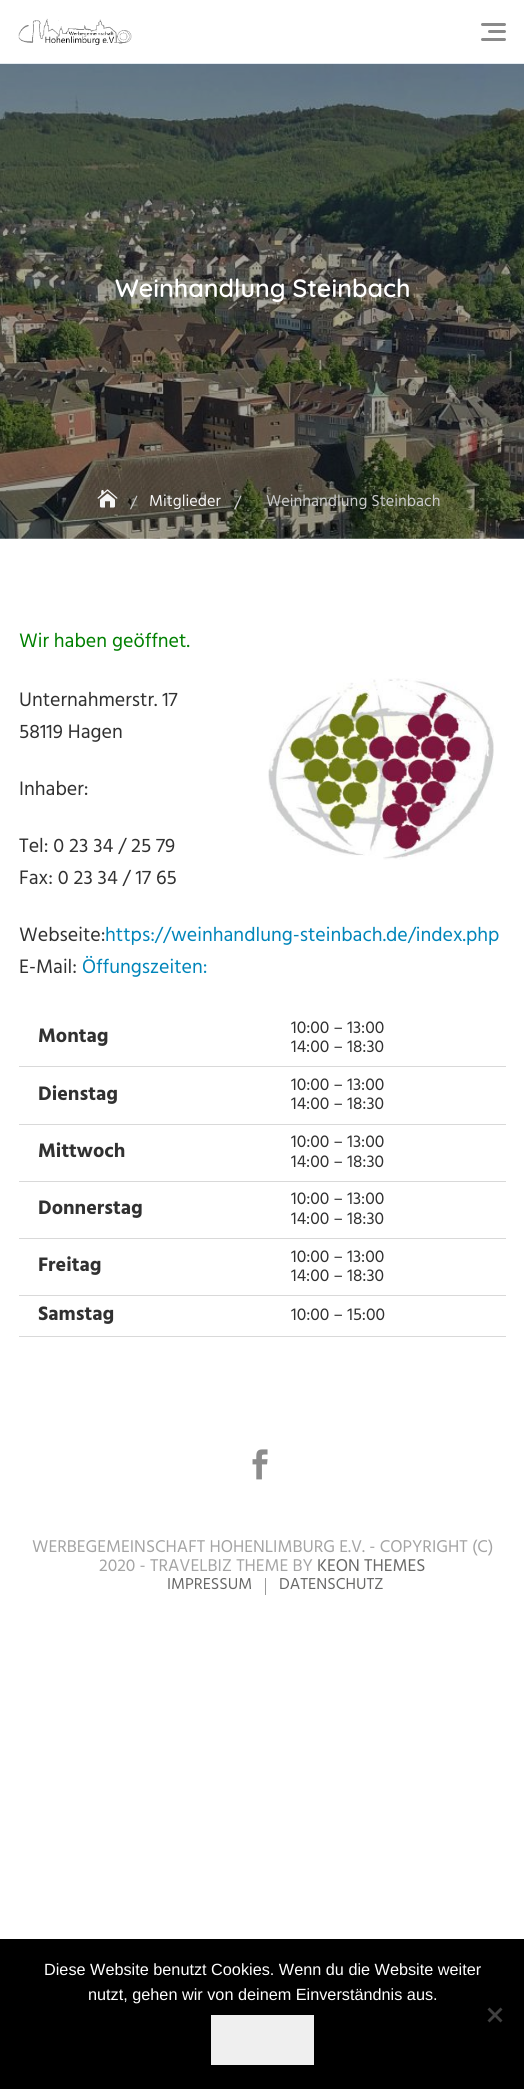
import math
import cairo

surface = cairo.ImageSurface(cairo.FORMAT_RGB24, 524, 2089)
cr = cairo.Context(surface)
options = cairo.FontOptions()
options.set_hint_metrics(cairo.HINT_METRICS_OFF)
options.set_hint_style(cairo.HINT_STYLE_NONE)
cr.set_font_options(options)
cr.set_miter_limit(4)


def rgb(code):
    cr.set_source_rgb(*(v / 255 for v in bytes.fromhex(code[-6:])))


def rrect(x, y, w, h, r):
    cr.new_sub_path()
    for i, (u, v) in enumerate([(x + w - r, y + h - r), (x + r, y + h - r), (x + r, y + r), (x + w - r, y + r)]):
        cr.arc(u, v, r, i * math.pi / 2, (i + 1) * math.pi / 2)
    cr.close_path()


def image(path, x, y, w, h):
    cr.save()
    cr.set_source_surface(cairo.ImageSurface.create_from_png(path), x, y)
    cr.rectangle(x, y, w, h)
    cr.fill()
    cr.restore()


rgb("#ffffff")
cr.paint()
image("img/1.png", 18, 18, 114, 27)
rgb("#8a8a8a")
rrect(488, 30, 18, 3, 1.5)
cr.fill()
rrect(481, 23, 25, 3, 1.5)
cr.fill()
rrect(481, 38, 25, 3, 1.5)
cr.fill()
image("img/2.png", 0, 63, 524, 476)
image("img/3.png", 97, 489, 21, 19)
rgb("#cccccc")
cr.new_path()
cr.move_to(136.5, 495.5)
cr.line_to(137.5, 496)
cr.line_to(131, 509.5)
cr.line_to(130, 509)
cr.close_path()
cr.fill()
cr.new_path()
cr.move_to(240.5, 495.5)
cr.line_to(241.5, 496)
cr.line_to(235.5, 509.5)
cr.line_to(234, 509)
cr.close_path()
cr.fill()
image("img/4.png", 268, 678, 226, 182)
for x, y, w, h, color in [
    (19, 1066, 487, 1, "#d9d9d9"),
    (19, 1124, 487, 1, "#d9d9d9"),
    (19, 1181, 487, 1, "#d9d9d9"),
    (19, 1238, 487, 1, "#d9d9d9"),
    (19, 1295, 487, 1, "#d9d9d9"),
    (19, 1336, 487, 1, "#d9d9d9"),
]:
    rgb(color)
    cr.rectangle(x, y, w, h)
    cr.fill()
image("img/5.png", 252, 1449, 16, 31)
for x, y, w, h, color in [
    (265, 1578, 1, 17, "#999999"),
    (0, 1939, 524, 150, "#000000"),
    (211, 2015, 103, 50, "#efefef"),
]:
    rgb(color)
    cr.rectangle(x, y, w, h)
    cr.fill()
rgb("#404040")
cr.new_path()
cr.move_to(500.5, 2007.5)
cr.line_to(502.5, 2009.5)
cr.line_to(489.5, 2022.5)
cr.line_to(487.5, 2020.5)
cr.close_path()
cr.fill()
cr.new_path()
cr.move_to(487.5, 2009.5)
cr.line_to(489.5, 2007.5)
cr.line_to(502.5, 2020.5)
cr.line_to(500.5, 2022.5)
cr.close_path()
cr.fill()
cr.select_font_face("Quicksand SemiBold")
cr.set_font_size(25)
rgb("#ffffff")
cr.move_to(115, 297)
cr.show_text("Weinhandlung Steinbach")
cr.select_font_face("Hind")
cr.set_font_size(16.25)
rgb("#f5f5f5")
cr.move_to(149, 506)
cr.show_text("Mitglieder")
rgb("#cacaca")
cr.move_to(266, 506)
cr.show_text("Weinhandlung Steinbach")
cr.set_font_size(20)
rgb("#008000")
cr.move_to(19, 647)
cr.show_text("Wir haben geöffnet.")
rgb("#313131")
for x, y, s in [
    (19, 706, "Unternahmerstr. 17"),
    (19, 738, "58119 Hagen"),
    (19, 795, "Inhaber:"),
    (19, 852, "Tel: 0 23 34 / 25 79"),
    (19, 884, "Fax: 0 23 34 / 17 65"),
    (19, 941, "Webseite:"),
]:
    cr.move_to(x, y)
    cr.show_text(s)
rgb("#0085ba")
cr.move_to(105, 941)
cr.show_text("https://weinhandlung-steinbach.de/index.php")
rgb("#313131")
cr.move_to(19, 973)
cr.show_text("E-Mail:")
rgb("#0085ba")
cr.move_to(82, 973)
cr.show_text("Öffungszeiten:")
cr.select_font_face("Hind", cairo.FONT_SLANT_NORMAL, cairo.FONT_WEIGHT_BOLD)
rgb("#313131")
cr.move_to(38, 1042)
cr.show_text("Montag")
cr.select_font_face("Hind")
cr.set_font_size(17.5)
cr.move_to(291, 1033)
cr.show_text("10:00 – 13:00")
cr.move_to(291, 1052)
cr.show_text("14:00 – 18:30")
cr.select_font_face("Hind", cairo.FONT_SLANT_NORMAL, cairo.FONT_WEIGHT_BOLD)
cr.set_font_size(20)
cr.move_to(38, 1100)
cr.show_text("Dienstag")
cr.select_font_face("Hind")
cr.set_font_size(17.5)
cr.move_to(291, 1090)
cr.show_text("10:00 – 13:00")
cr.move_to(291, 1109)
cr.show_text("14:00 – 18:30")
cr.select_font_face("Hind", cairo.FONT_SLANT_NORMAL, cairo.FONT_WEIGHT_BOLD)
cr.set_font_size(20)
cr.move_to(38, 1157)
cr.show_text("Mittwoch")
cr.select_font_face("Hind")
cr.set_font_size(17.5)
cr.move_to(291, 1147)
cr.show_text("10:00 – 13:00")
cr.move_to(291, 1167)
cr.show_text("14:00 – 18:30")
cr.select_font_face("Hind", cairo.FONT_SLANT_NORMAL, cairo.FONT_WEIGHT_BOLD)
cr.set_font_size(20)
cr.move_to(38, 1214)
cr.show_text("Donnerstag")
cr.select_font_face("Hind")
cr.set_font_size(17.5)
cr.move_to(291, 1204)
cr.show_text("10:00 – 13:00")
cr.move_to(291, 1224)
cr.show_text("14:00 – 18:30")
cr.select_font_face("Hind", cairo.FONT_SLANT_NORMAL, cairo.FONT_WEIGHT_BOLD)
cr.set_font_size(20)
cr.move_to(38, 1271)
cr.show_text("Freitag")
cr.select_font_face("Hind")
cr.set_font_size(17.5)
cr.move_to(291, 1262)
cr.show_text("10:00 – 13:00")
cr.move_to(291, 1281)
cr.show_text("14:00 – 18:30")
cr.select_font_face("Hind", cairo.FONT_SLANT_NORMAL, cairo.FONT_WEIGHT_BOLD)
cr.set_font_size(20)
cr.move_to(38, 1320)
cr.show_text("Samstag")
cr.select_font_face("Hind")
cr.set_font_size(17.5)
cr.move_to(291, 1320)
cr.show_text("10:00 – 15:00")
rgb("#a4a4a4")
cr.move_to(32, 1552)
cr.show_text("WERBEGEMEINSCHAFT HOHENLIMBURG E.V. - COPYRIGHT (C)")
cr.move_to(99, 1571)
cr.show_text("2020 - TRAVELBIZ THEME BY")
rgb("#686867")
cr.move_to(317, 1571)
cr.show_text("KEON THEMES")
cr.set_font_size(16.25)
cr.move_to(167, 1589)
cr.show_text("IMPRESSUM")
cr.move_to(279, 1589)
cr.show_text("DATENSCHUTZ")
cr.select_font_face("Liberation Sans")
rgb("#ffffff")
cr.move_to(44, 1975)
cr.show_text("Diese Website benutzt Cookies. Wenn du die Website weiter")
cr.move_to(88, 2000)
cr.show_text("nutzt, gehen wir von deinem Einverständnis aus.")
surface.write_to_png("page.png")
